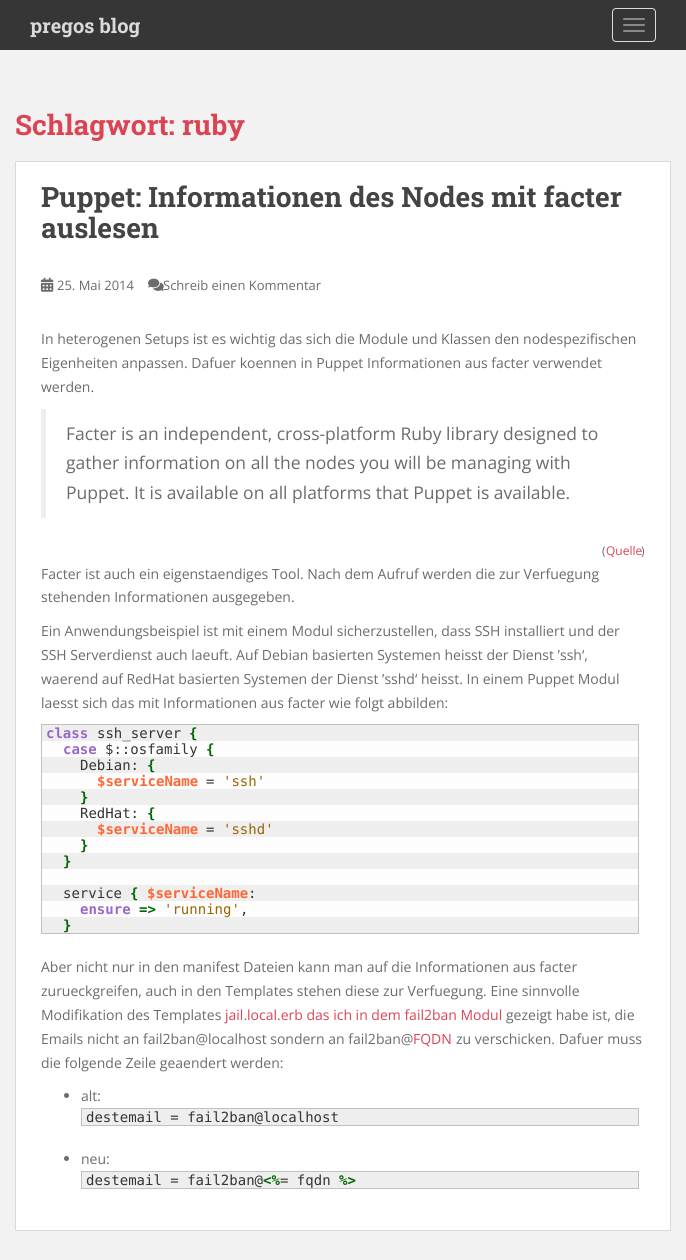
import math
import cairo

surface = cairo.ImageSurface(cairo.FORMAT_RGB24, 686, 1260)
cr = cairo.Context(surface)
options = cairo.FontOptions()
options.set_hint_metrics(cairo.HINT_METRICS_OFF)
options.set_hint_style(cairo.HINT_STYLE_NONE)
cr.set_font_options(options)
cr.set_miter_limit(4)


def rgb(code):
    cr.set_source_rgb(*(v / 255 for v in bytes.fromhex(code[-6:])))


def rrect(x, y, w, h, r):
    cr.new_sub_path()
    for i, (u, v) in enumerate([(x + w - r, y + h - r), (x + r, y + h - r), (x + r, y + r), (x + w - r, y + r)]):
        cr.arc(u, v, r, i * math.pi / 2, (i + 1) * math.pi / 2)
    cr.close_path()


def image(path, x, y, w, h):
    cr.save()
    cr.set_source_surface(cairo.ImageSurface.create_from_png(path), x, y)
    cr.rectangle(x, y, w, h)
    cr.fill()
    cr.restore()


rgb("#f2f2f2")
cr.paint()
rgb("#363636")
cr.rectangle(0, 0, 686, 50)
cr.fill()
rrect(612.5, 8.5, 43, 33, 3.5)
rgb("#dddddd")
cr.set_line_width(1)
cr.stroke()
rgb("#888888")
rrect(623, 18, 22, 2, 1)
cr.fill()
rrect(623, 24, 22, 2, 1)
cr.fill()
rrect(623, 30, 22, 2, 1)
cr.fill()
rgb("#ffffff")
cr.rectangle(15.5, 161.5, 655, 1069)
cr.fill_preserve()
rgb("#dadada")
cr.stroke()
image("img/1.png", 41, 277, 13, 15)
image("img/2.png", 148, 278, 16, 13)
rgb("#eeeeee")
cr.rectangle(41, 409, 5, 109)
cr.fill()
cr.rectangle(41.5, 724.5, 597, 209)
rgb("#c0c0c0")
cr.stroke()
for x, y, w, h, color in [
    (42, 725, 596, 208, "#eeeeee"),
    (42, 741, 596, 16, "#fdfdfd"),
    (42, 773, 596, 16, "#fdfdfd"),
    (42, 805, 596, 16, "#fdfdfd"),
    (42, 837, 596, 16, "#fdfdfd"),
    (42, 869, 596, 16, "#fdfdfd"),
    (42, 901, 596, 16, "#fdfdfd"),
]:
    rgb(color)
    cr.rectangle(x, y, w, h)
    cr.fill()
rgb("#6b6b6b")
cr.arc(66.5, 1095.5, 2.5, 0, 2 * math.pi)
cr.fill()
cr.rectangle(81.5, 1108.5, 557, 17)
rgb("#c0c0c0")
cr.stroke()
rgb("#eeeeee")
cr.rectangle(82, 1109, 556, 16)
cr.fill()
rgb("#6b6b6b")
cr.arc(66.5, 1158.5, 2.5, 0, 2 * math.pi)
cr.fill()
cr.rectangle(81.5, 1171.5, 557, 17)
rgb("#c0c0c0")
cr.stroke()
rgb("#eeeeee")
cr.rectangle(82, 1172, 556, 16)
cr.fill()
cr.select_font_face("Roboto Slab", cairo.FONT_SLANT_NORMAL, cairo.FONT_WEIGHT_BOLD)
cr.set_font_size(20)
rgb("#dadada")
cr.move_to(30, 33)
cr.show_text("pregos blog")
cr.set_font_size(28)
rgb("#da4453")
cr.move_to(15, 135)
cr.show_text("Schlagwort: ruby")
rgb("#444444")
cr.move_to(41, 207)
cr.show_text("Puppet: Informationen des Nodes mit facter")
cr.move_to(41, 238)
cr.show_text("auslesen")
cr.select_font_face("Open Sans")
cr.set_font_size(13)
rgb("#6b6b6b")
cr.move_to(57, 290)
cr.show_text("25. Mai 2014")
cr.move_to(163, 290)
cr.show_text("Schreib einen Kommentar")
cr.set_font_size(14)
for x, y, s in [
    (41, 344, "In heterogenen Setups ist es wichtig das sich die Module und Klassen den nodespezifischen"),
    (41, 368, "Eigenheiten anpassen. Dafuer koennen in Puppet Informationen aus facter verwendet"),
    (41, 392, "werden."),
]:
    cr.move_to(x, y)
    cr.show_text(s)
cr.set_font_size(17.5)
for x, y, s in [
    (66, 440, "Facter is an independent, cross-platform Ruby library designed to"),
    (66, 469, "gather information on all the nodes you will be managing with"),
    (66, 499, "Puppet. It is available on all platforms that Puppet is available."),
]:
    cr.move_to(x, y)
    cr.show_text(s)
cr.set_font_size(12)
cr.move_to(602, 555)
cr.show_text("(")
rgb("#da4453")
cr.move_to(606, 555)
cr.show_text("Quelle")
rgb("#6b6b6b")
cr.move_to(641, 555)
cr.show_text(")")
cr.set_font_size(14)
for x, y, s in [
    (41, 579, "Facter ist auch ein eigenstaendiges Tool. Nach dem Aufruf werden die zur Verfuegung"),
    (41, 602, "stehenden Informationen ausgegeben."),
    (41, 636, "Ein Anwendungsbeispiel ist mit einem Modul sicherzustellen, dass SSH installiert und der"),
    (41, 660, "SSH Serverdienst auch laeuft. Auf Debian basierten Systemen heisst der Dienst ’ssh‘,"),
    (41, 684, "waerend auf RedHat basierten Systemen der Dienst ’sshd‘ heisst. In einem Puppet Modul"),
    (41, 708, "laesst sich das mit Informationen aus facter wie folgt abbilden:"),
]:
    cr.move_to(x, y)
    cr.show_text(s)
cr.select_font_face("DejaVu Sans Mono", cairo.FONT_SLANT_NORMAL, cairo.FONT_WEIGHT_BOLD)
rgb("#9966cc")
cr.move_to(46, 738)
cr.show_text("class")
cr.select_font_face("DejaVu Sans Mono")
rgb("#333333")
cr.move_to(97, 738)
cr.show_text("ssh_server")
cr.select_font_face("DejaVu Sans Mono", cairo.FONT_SLANT_NORMAL, cairo.FONT_WEIGHT_BOLD)
rgb("#006600")
cr.move_to(189, 738)
cr.show_text("{")
rgb("#9966cc")
cr.move_to(63, 754)
cr.show_text("case")
cr.select_font_face("DejaVu Sans Mono")
rgb("#333333")
cr.move_to(105, 754)
cr.show_text("$::osfamily")
cr.select_font_face("DejaVu Sans Mono", cairo.FONT_SLANT_NORMAL, cairo.FONT_WEIGHT_BOLD)
rgb("#006600")
cr.move_to(206, 754)
cr.show_text("{")
cr.select_font_face("DejaVu Sans Mono")
rgb("#333333")
cr.move_to(80, 770)
cr.show_text("Debian:")
cr.select_font_face("DejaVu Sans Mono", cairo.FONT_SLANT_NORMAL, cairo.FONT_WEIGHT_BOLD)
rgb("#006600")
cr.move_to(147, 770)
cr.show_text("{")
rgb("#ff6633")
cr.move_to(97, 786)
cr.show_text("$serviceName")
cr.select_font_face("DejaVu Sans Mono")
rgb("#333333")
cr.move_to(206, 786)
cr.show_text("=")
rgb("#996600")
cr.move_to(223, 786)
cr.show_text("'ssh'")
cr.select_font_face("DejaVu Sans Mono", cairo.FONT_SLANT_NORMAL, cairo.FONT_WEIGHT_BOLD)
rgb("#006600")
cr.move_to(80, 802)
cr.show_text("}")
cr.select_font_face("DejaVu Sans Mono")
rgb("#333333")
cr.move_to(80, 818)
cr.show_text("RedHat:")
cr.select_font_face("DejaVu Sans Mono", cairo.FONT_SLANT_NORMAL, cairo.FONT_WEIGHT_BOLD)
rgb("#006600")
cr.move_to(147, 818)
cr.show_text("{")
rgb("#ff6633")
cr.move_to(97, 834)
cr.show_text("$serviceName")
cr.select_font_face("DejaVu Sans Mono")
rgb("#333333")
cr.move_to(206, 834)
cr.show_text("=")
rgb("#996600")
cr.move_to(223, 834)
cr.show_text("'sshd'")
cr.select_font_face("DejaVu Sans Mono", cairo.FONT_SLANT_NORMAL, cairo.FONT_WEIGHT_BOLD)
rgb("#006600")
cr.move_to(80, 850)
cr.show_text("}")
cr.move_to(63, 866)
cr.show_text("}")
cr.select_font_face("DejaVu Sans Mono")
rgb("#333333")
cr.move_to(63, 898)
cr.show_text("service")
cr.select_font_face("DejaVu Sans Mono", cairo.FONT_SLANT_NORMAL, cairo.FONT_WEIGHT_BOLD)
rgb("#006600")
cr.move_to(130, 898)
cr.show_text("{")
rgb("#ff6633")
cr.move_to(147, 898)
cr.show_text("$serviceName")
cr.select_font_face("DejaVu Sans Mono")
rgb("#333333")
cr.move_to(248, 898)
cr.show_text(":")
cr.select_font_face("DejaVu Sans Mono", cairo.FONT_SLANT_NORMAL, cairo.FONT_WEIGHT_BOLD)
rgb("#9966cc")
cr.move_to(80, 914)
cr.show_text("ensure")
rgb("#006600")
cr.move_to(139, 914)
cr.show_text("=>")
cr.select_font_face("DejaVu Sans Mono")
rgb("#996600")
cr.move_to(164, 914)
cr.show_text("'running'")
rgb("#333333")
cr.move_to(240, 914)
cr.show_text(",")
cr.select_font_face("DejaVu Sans Mono", cairo.FONT_SLANT_NORMAL, cairo.FONT_WEIGHT_BOLD)
rgb("#006600")
cr.move_to(63, 930)
cr.show_text("}")
cr.select_font_face("Open Sans")
rgb("#6b6b6b")
for x, y, s in [
    (41, 972, "Aber nicht nur in den manifest Dateien kann man auf die Informationen aus facter"),
    (41, 996, "zurueckgreifen, auch in den Templates stehen diese zur Verfuegung. Eine sinnvolle"),
    (41, 1020, "Modifikation des Templates"),
]:
    cr.move_to(x, y)
    cr.show_text(s)
rgb("#da4453")
cr.move_to(225, 1020)
cr.show_text("jail.local.erb das ich in dem fail2ban Modul")
rgb("#6b6b6b")
cr.move_to(506, 1020)
cr.show_text("gezeigt habe ist, die")
cr.move_to(41, 1044)
cr.show_text("Emails nicht an fail2ban@localhost sondern an fail2ban@")
rgb("#da4453")
cr.move_to(413, 1044)
cr.show_text("FQDN")
rgb("#6b6b6b")
for x, y, s in [
    (456, 1044, "zu verschicken. Dafuer muss"),
    (41, 1068, "die folgende Zeile geaendert werden:"),
    (81, 1101, "alt:"),
]:
    cr.move_to(x, y)
    cr.show_text(s)
cr.select_font_face("DejaVu Sans Mono")
rgb("#333333")
cr.move_to(86, 1122)
cr.show_text("destemail = fail2ban@localhost")
cr.select_font_face("Open Sans")
rgb("#6b6b6b")
cr.move_to(81, 1164)
cr.show_text("neu:")
cr.select_font_face("DejaVu Sans Mono")
rgb("#333333")
cr.move_to(86, 1185)
cr.show_text("destemail = fail2ban@")
cr.select_font_face("DejaVu Sans Mono", cairo.FONT_SLANT_NORMAL, cairo.FONT_WEIGHT_BOLD)
rgb("#006600")
cr.move_to(263, 1185)
cr.show_text("<%")
cr.select_font_face("DejaVu Sans Mono")
rgb("#333333")
cr.move_to(280, 1185)
cr.show_text("= fqdn")
cr.select_font_face("DejaVu Sans Mono", cairo.FONT_SLANT_NORMAL, cairo.FONT_WEIGHT_BOLD)
rgb("#006600")
cr.move_to(339, 1185)
cr.show_text("%>")
surface.write_to_png("page.png")
